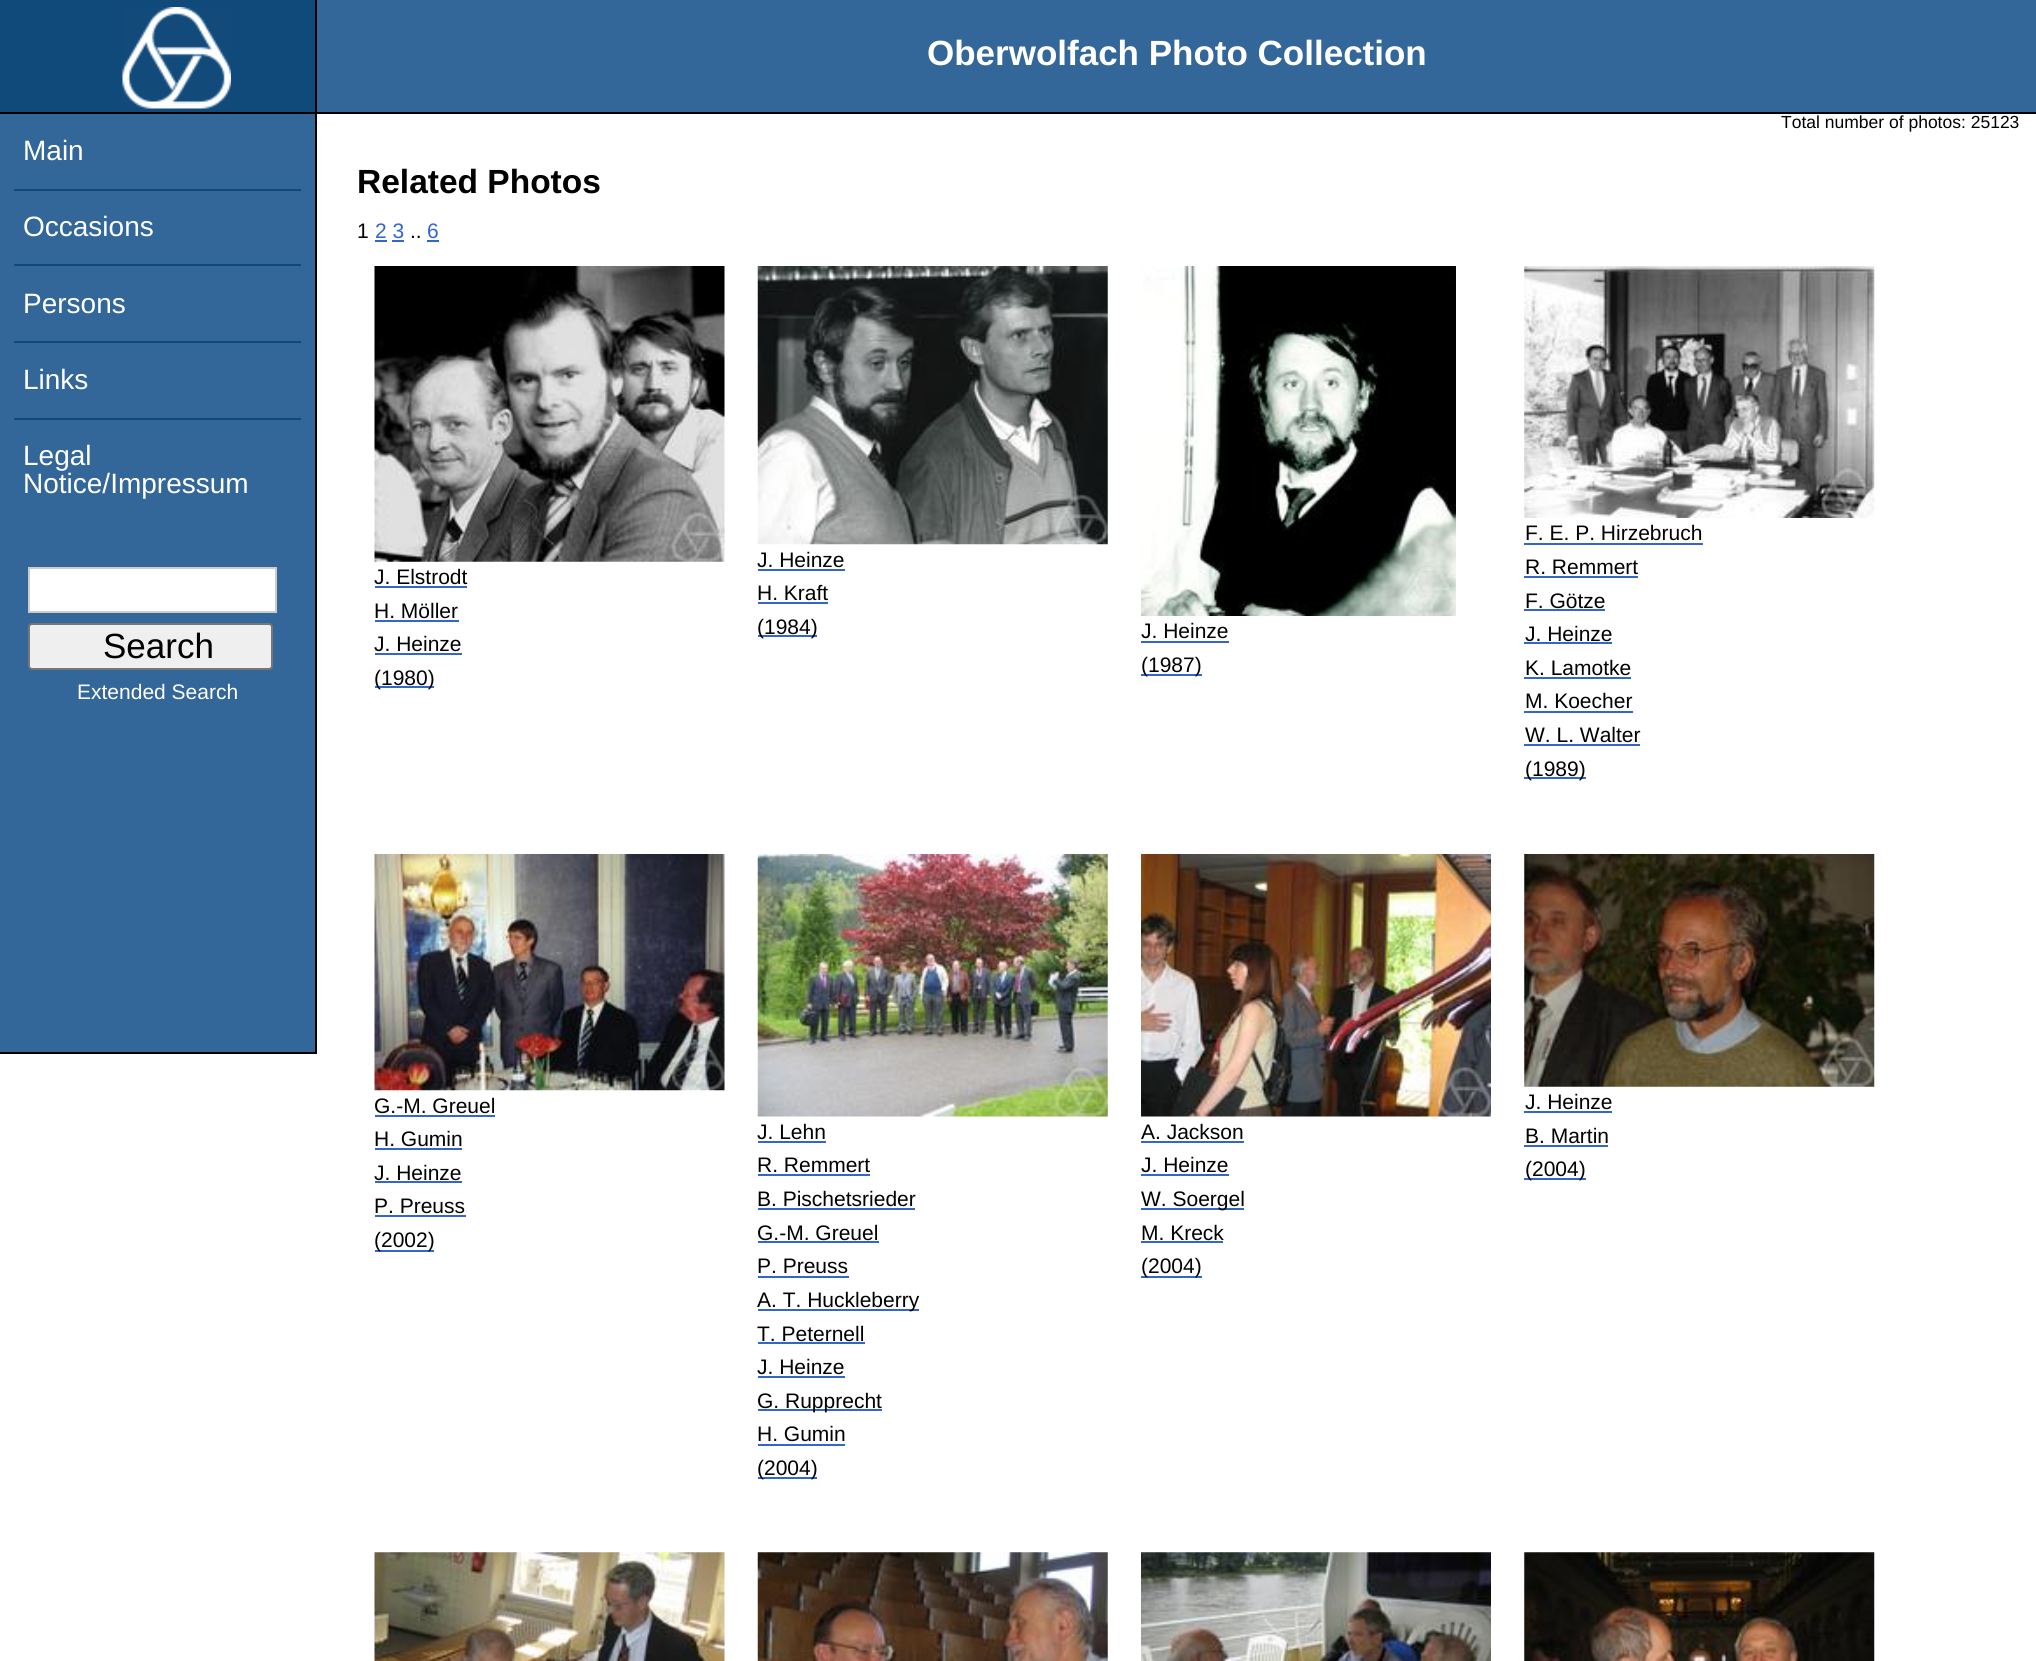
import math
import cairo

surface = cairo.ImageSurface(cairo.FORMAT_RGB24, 2036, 1661)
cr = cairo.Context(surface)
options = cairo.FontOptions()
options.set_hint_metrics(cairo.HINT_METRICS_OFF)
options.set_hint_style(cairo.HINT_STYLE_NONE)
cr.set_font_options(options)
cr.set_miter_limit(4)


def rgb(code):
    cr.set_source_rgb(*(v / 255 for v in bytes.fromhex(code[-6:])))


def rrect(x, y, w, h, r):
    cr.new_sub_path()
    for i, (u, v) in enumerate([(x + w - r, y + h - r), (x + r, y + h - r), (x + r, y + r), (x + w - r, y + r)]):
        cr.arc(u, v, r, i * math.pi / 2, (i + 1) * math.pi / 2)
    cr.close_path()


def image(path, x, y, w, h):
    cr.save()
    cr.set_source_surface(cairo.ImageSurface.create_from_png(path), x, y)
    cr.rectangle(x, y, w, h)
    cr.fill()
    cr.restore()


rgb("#ffffff")
cr.paint()
for x, y, w, h, color in [
    (317, 0, 1719, 112, "#336699"),
    (0, 112, 2036, 2, "#000000"),
    (0, 0, 315, 112, "#104a7b"),
    (315, 0, 2, 112, "#000000"),
]:
    rgb(color)
    cr.rectangle(x, y, w, h)
    cr.fill()
image("img/1.png", 122, 7, 109, 102)
for x, y, w, h, color in [
    (0, 114, 315, 938, "#336699"),
    (315, 114, 2, 940, "#000000"),
    (0, 1052, 317, 2, "#000000"),
    (14, 189, 287, 2, "#104a7b"),
    (14, 264, 287, 2, "#104a7b"),
    (14, 341, 287, 2, "#104a7b"),
    (14, 418, 287, 2, "#104a7b"),
]:
    rgb(color)
    cr.rectangle(x, y, w, h)
    cr.fill()
rgb("#ffffff")
cr.rectangle(29, 568, 247, 44)
cr.fill_preserve()
rgb("#cccccc")
cr.stroke()
rgb("#efefef")
rrect(29, 624, 243, 45, 3)
cr.fill_preserve()
rgb("#767676")
cr.stroke()
for x, y, w, h, color in [
    (375, 240, 12, 2, "#3366cc"),
    (427, 240, 12, 2, "#3366cc"),
    (392, 240, 12, 2, "#3366cc"),
]:
    rgb(color)
    cr.rectangle(x, y, w, h)
    cr.fill()
image("img/2.png", 374, 266, 351, 296)
for x, y, w, h, color in [
    (375, 586, 92, 2, "#3366cc"),
    (375, 620, 84, 2, "#3366cc"),
    (375, 653, 87, 2, "#3366cc"),
    (375, 686, 59, 2, "#3366cc"),
]:
    rgb(color)
    cr.rectangle(x, y, w, h)
    cr.fill()
image("img/3.png", 757, 266, 351, 279)
for x, y, w, h, color in [
    (758, 569, 87, 2, "#3366cc"),
    (758, 602, 70, 2, "#3366cc"),
    (758, 635, 59, 2, "#3366cc"),
]:
    rgb(color)
    cr.rectangle(x, y, w, h)
    cr.fill()
image("img/4.png", 1141, 266, 315, 350)
cr.rectangle(1141, 641, 88, 2)
cr.fill()
cr.rectangle(1141, 674, 61, 2)
cr.fill()
image("img/5.png", 1524, 266, 351, 252)
for x, y, w, h, color in [
    (1524, 543, 179, 2, "#3366cc"),
    (1524, 576, 114, 2, "#3366cc"),
    (1524, 609, 81, 2, "#3366cc"),
    (1524, 642, 88, 2, "#3366cc"),
    (1524, 677, 107, 2, "#3366cc"),
    (1524, 711, 109, 2, "#3366cc"),
    (1524, 744, 116, 2, "#3366cc"),
    (1524, 777, 62, 2, "#3366cc"),
]:
    rgb(color)
    cr.rectangle(x, y, w, h)
    cr.fill()
image("img/6.png", 374, 854, 351, 237)
for x, y, w, h, color in [
    (375, 1115, 120, 2, "#3366cc"),
    (375, 1148, 87, 2, "#3366cc"),
    (375, 1181, 87, 2, "#3366cc"),
    (375, 1215, 91, 2, "#3366cc"),
    (375, 1250, 59, 2, "#3366cc"),
]:
    rgb(color)
    cr.rectangle(x, y, w, h)
    cr.fill()
image("img/7.png", 757, 854, 351, 263)
for x, y, w, h, color in [
    (758, 1141, 68, 2, "#3366cc"),
    (758, 1174, 112, 2, "#3366cc"),
    (758, 1208, 157, 2, "#3366cc"),
    (758, 1241, 121, 2, "#3366cc"),
    (758, 1276, 91, 2, "#3366cc"),
    (758, 1309, 161, 2, "#3366cc"),
    (758, 1342, 107, 2, "#3366cc"),
    (758, 1376, 87, 2, "#3366cc"),
    (758, 1409, 124, 2, "#3366cc"),
    (758, 1444, 87, 2, "#3366cc"),
    (758, 1477, 59, 2, "#3366cc"),
]:
    rgb(color)
    cr.rectangle(x, y, w, h)
    cr.fill()
image("img/8.png", 1141, 854, 350, 263)
for x, y, w, h, color in [
    (1141, 1141, 103, 2, "#3366cc"),
    (1141, 1174, 88, 2, "#3366cc"),
    (1141, 1208, 103, 2, "#3366cc"),
    (1141, 1241, 82, 2, "#3366cc"),
    (1141, 1276, 61, 2, "#3366cc"),
]:
    rgb(color)
    cr.rectangle(x, y, w, h)
    cr.fill()
image("img/9.png", 1524, 854, 351, 233)
for x, y, w, h, color in [
    (1524, 1111, 88, 2, "#3366cc"),
    (1524, 1145, 84, 2, "#3366cc"),
    (1524, 1178, 62, 2, "#3366cc"),
]:
    rgb(color)
    cr.rectangle(x, y, w, h)
    cr.fill()
image("img/10.png", 374, 1552, 351, 109)
image("img/11.png", 757, 1552, 351, 109)
image("img/12.png", 1141, 1552, 350, 109)
image("img/13.png", 1524, 1552, 351, 109)
cr.select_font_face("Liberation Sans", cairo.FONT_SLANT_NORMAL, cairo.FONT_WEIGHT_BOLD)
cr.set_font_size(35)
rgb("#ffffff")
cr.move_to(927, 65)
cr.show_text("Oberwolfach Photo Collection")
cr.select_font_face("Liberation Sans")
cr.set_font_size(17.5)
rgb("#000000")
cr.move_to(1781, 128)
cr.show_text("Total number of photos: 25123")
cr.set_font_size(28)
rgb("#ffffff")
for x, y, s in [
    (23, 160, "Main"),
    (23, 236, "Occasions"),
    (23, 313, "Persons"),
    (23, 389, "Links"),
    (23, 465, "Legal"),
    (23, 493, "Notice/Impressum"),
]:
    cr.move_to(x, y)
    cr.show_text(s)
cr.set_font_size(35)
rgb("#000000")
cr.move_to(103, 658)
cr.show_text("Search")
cr.set_font_size(21)
rgb("#ffffff")
cr.move_to(77, 699)
cr.show_text("Extended Search")
cr.select_font_face("Liberation Sans", cairo.FONT_SLANT_NORMAL, cairo.FONT_WEIGHT_BOLD)
cr.set_font_size(33.5)
rgb("#000000")
cr.move_to(357, 193)
cr.show_text("Related Photos")
cr.select_font_face("Liberation Sans")
cr.set_font_size(21)
cr.move_to(357, 238)
cr.show_text("1")
rgb("#3366cc")
cr.move_to(375, 238)
cr.show_text("2 3")
rgb("#000000")
cr.move_to(410, 238)
cr.show_text("..")
rgb("#3366cc")
cr.move_to(427, 238)
cr.show_text("6")
rgb("#000000")
for x, y, s in [
    (374, 584, "J. Elstrodt"),
    (374, 618, "H. Möller"),
    (374, 651, "J. Heinze"),
    (374, 685, "(1980)"),
    (757, 567, "J. Heinze"),
    (757, 600, "H. Kraft"),
    (757, 634, "(1984)"),
    (1141, 638, "J. Heinze"),
    (1141, 672, "(1987)"),
    (1525, 540, "F. E. P. Hirzebruch"),
    (1525, 574, "R. Remmert"),
    (1525, 608, "F. Götze"),
    (1525, 641, "J. Heinze"),
    (1525, 675, "K. Lamotke"),
    (1525, 708, "M. Koecher"),
    (1525, 742, "W. L. Walter"),
    (1525, 776, "(1989)"),
    (374, 1113, "G.-M. Greuel"),
    (374, 1146, "H. Gumin"),
    (374, 1180, "J. Heinze"),
    (374, 1213, "P. Preuss"),
    (374, 1247, "(2002)"),
    (757, 1139, "J. Lehn"),
    (757, 1172, "R. Remmert"),
    (757, 1206, "B. Pischetsrieder"),
    (757, 1240, "G.-M. Greuel"),
    (757, 1273, "P. Preuss"),
    (757, 1307, "A. T. Huckleberry"),
    (757, 1341, "T. Peternell"),
    (757, 1374, "J. Heinze"),
    (757, 1408, "G. Rupprecht"),
    (757, 1441, "H. Gumin"),
    (757, 1475, "(2004)"),
    (1141, 1139, "A. Jackson"),
    (1141, 1172, "J. Heinze"),
    (1141, 1206, "W. Soergel"),
    (1141, 1240, "M. Kreck"),
    (1141, 1273, "(2004)"),
    (1525, 1109, "J. Heinze"),
    (1525, 1143, "B. Martin"),
    (1525, 1176, "(2004)"),
]:
    cr.move_to(x, y)
    cr.show_text(s)
surface.write_to_png("page.png")
